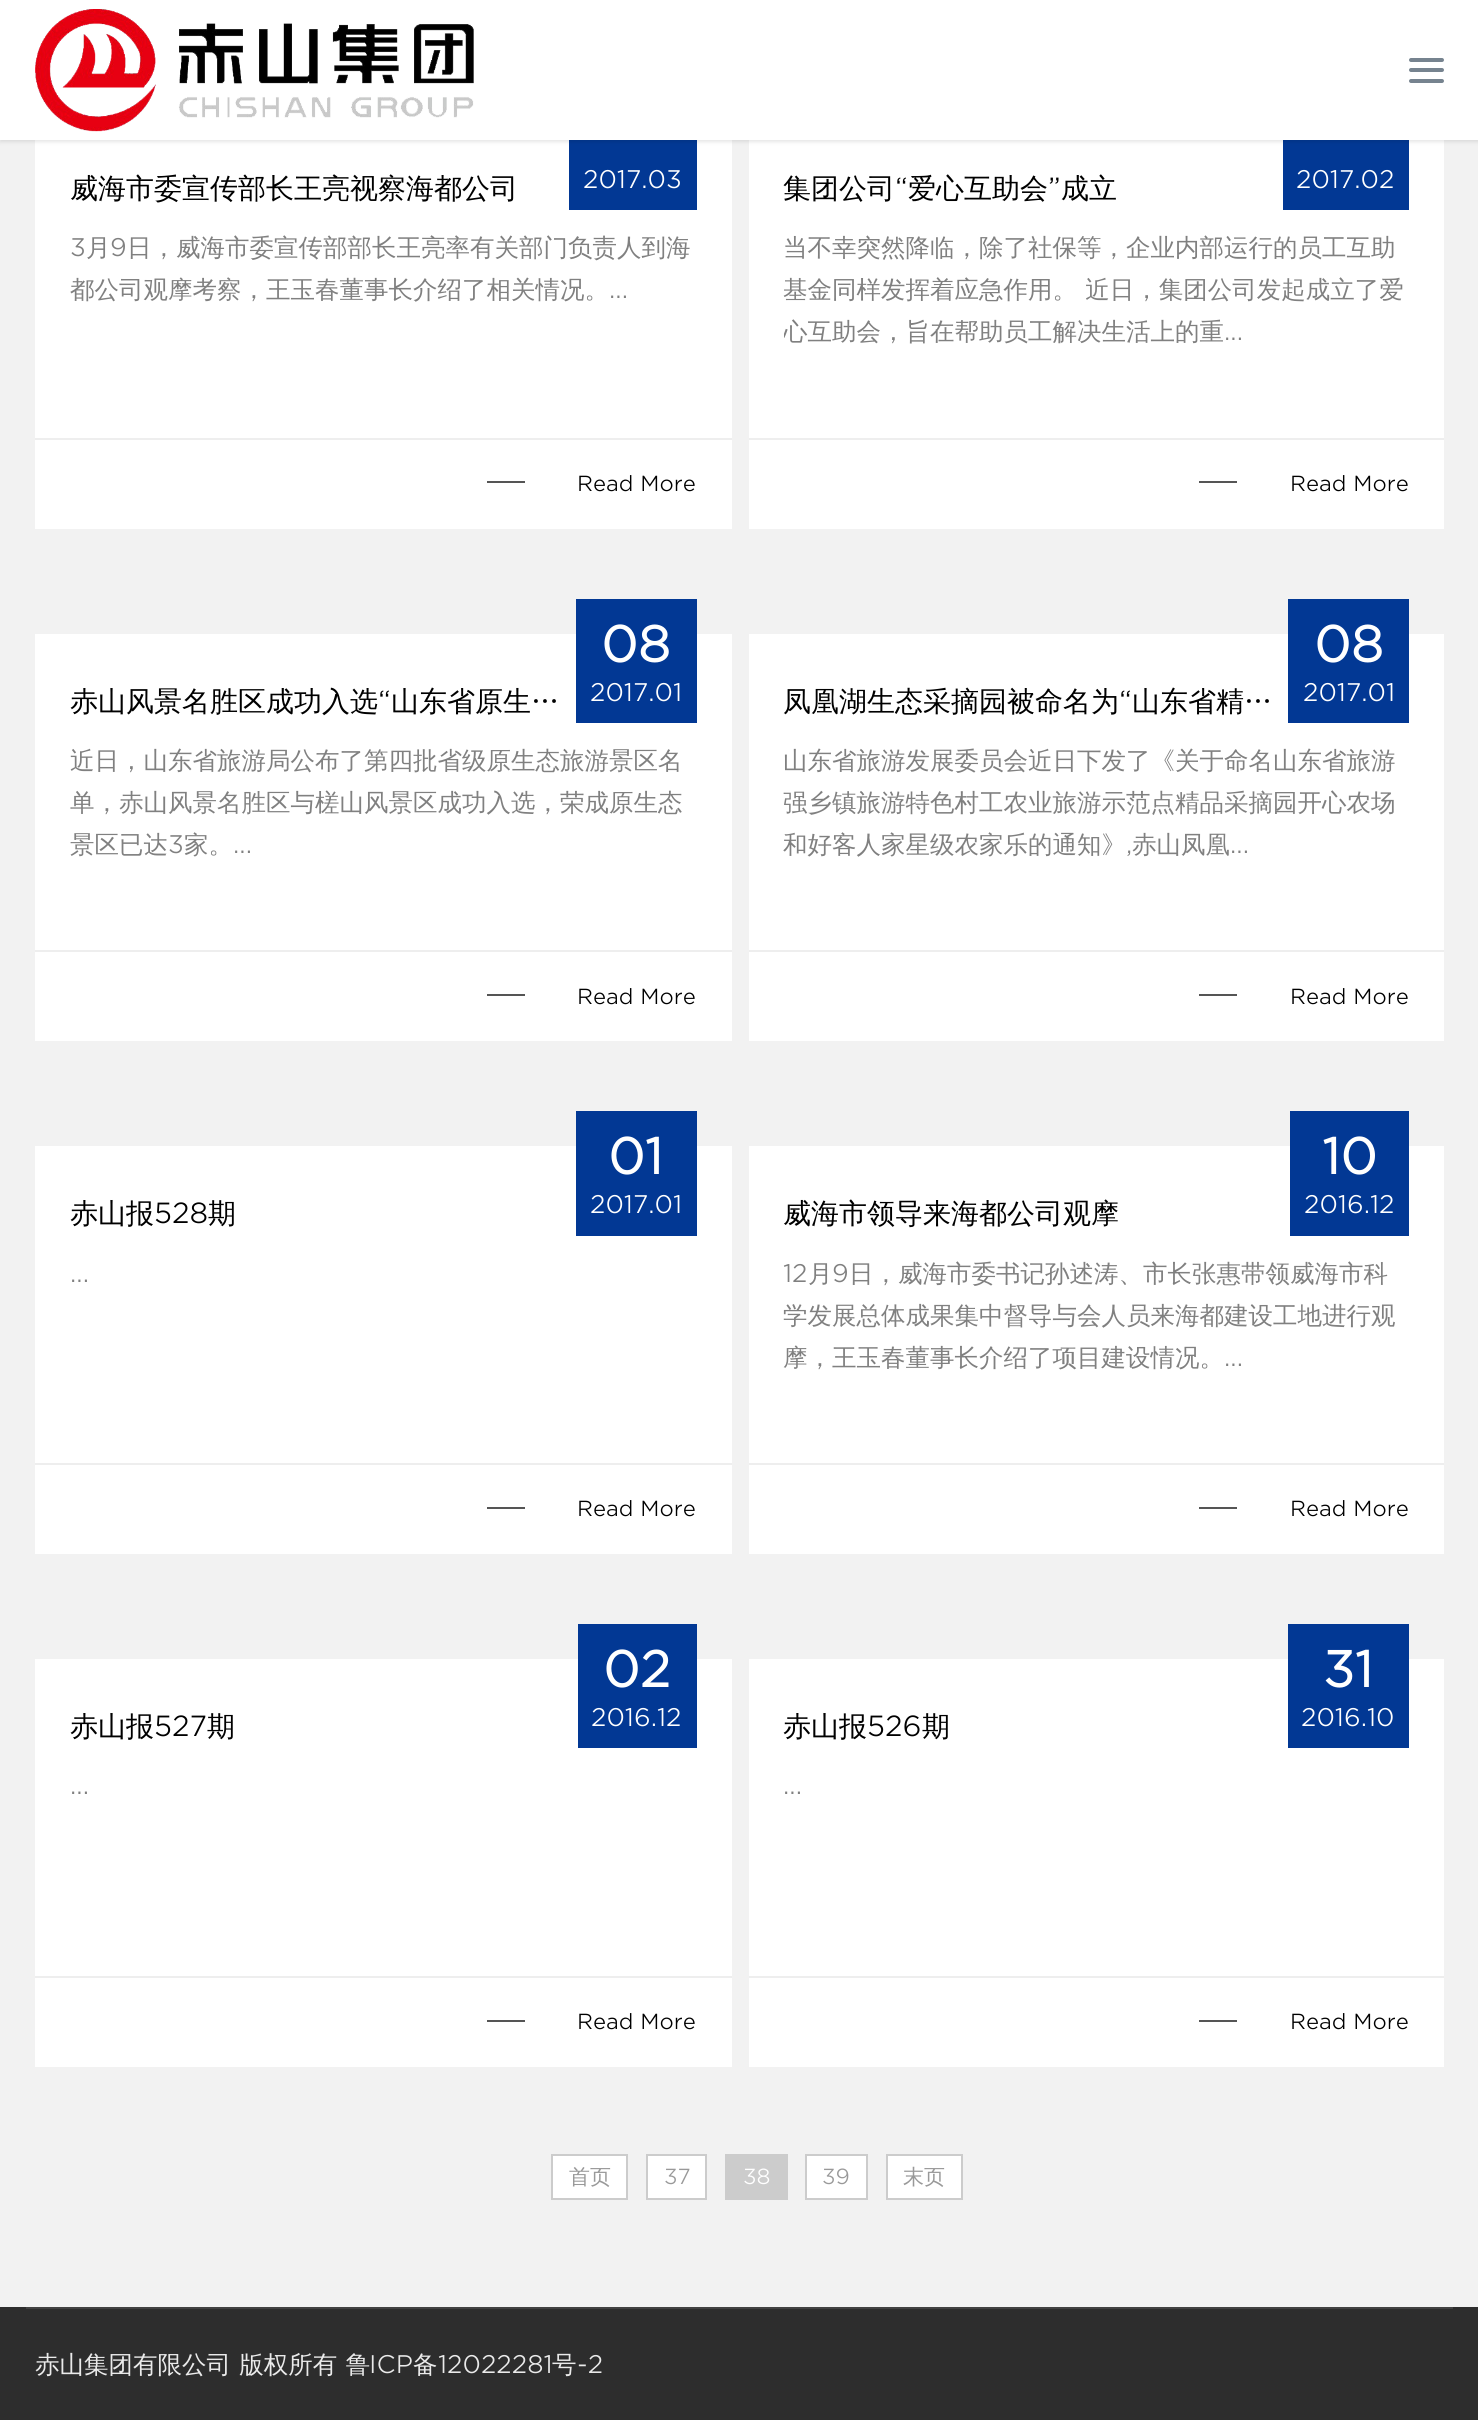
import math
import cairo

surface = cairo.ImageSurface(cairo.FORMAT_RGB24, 1478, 2420)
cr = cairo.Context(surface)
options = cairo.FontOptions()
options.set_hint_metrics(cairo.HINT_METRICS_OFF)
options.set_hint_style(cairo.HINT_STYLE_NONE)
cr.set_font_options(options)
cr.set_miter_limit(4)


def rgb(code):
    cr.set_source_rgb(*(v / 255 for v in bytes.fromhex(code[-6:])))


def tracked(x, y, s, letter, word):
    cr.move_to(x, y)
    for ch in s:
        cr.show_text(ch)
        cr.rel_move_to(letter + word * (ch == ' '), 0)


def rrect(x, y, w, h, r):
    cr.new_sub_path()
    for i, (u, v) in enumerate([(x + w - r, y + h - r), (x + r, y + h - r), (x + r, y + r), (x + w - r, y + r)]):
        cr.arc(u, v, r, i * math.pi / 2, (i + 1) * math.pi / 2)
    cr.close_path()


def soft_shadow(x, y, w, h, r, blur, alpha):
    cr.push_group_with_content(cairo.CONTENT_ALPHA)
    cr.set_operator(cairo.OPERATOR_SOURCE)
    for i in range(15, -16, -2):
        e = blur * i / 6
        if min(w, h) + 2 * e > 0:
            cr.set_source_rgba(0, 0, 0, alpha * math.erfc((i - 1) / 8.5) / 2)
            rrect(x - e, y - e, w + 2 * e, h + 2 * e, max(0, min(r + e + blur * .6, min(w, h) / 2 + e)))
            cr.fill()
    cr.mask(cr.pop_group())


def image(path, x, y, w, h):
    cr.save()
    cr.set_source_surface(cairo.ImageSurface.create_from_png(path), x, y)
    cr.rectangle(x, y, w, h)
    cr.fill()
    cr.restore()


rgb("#f2f2f2")
cr.paint()
for x, y, w, h, color in [
    (35, 140, 697, 389, "#ffffff"),
    (569, 140, 128, 70, "#023894"),
    (749, 140, 695, 389, "#ffffff"),
    (1283, 140, 126, 70, "#023894"),
]:
    rgb(color)
    cr.rectangle(x, y, w, h)
    cr.fill()
rgb("#000000")
soft_shadow(0, 2, 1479, 140, 0, 2, 0.1)
rgb("#ffffff")
cr.rectangle(0, 0, 1478, 140)
cr.fill()
image("img/1.png", 35, 9, 439, 123)
rgb("#76838f")
rrect(1409, 58, 35, 4, 2)
cr.fill()
rrect(1409, 68, 35, 4, 2)
cr.fill()
rrect(1409, 79, 35, 4, 2)
cr.fill()
for x, y, w, h, color in [
    (35, 438, 697, 2, "#eeeeee"),
    (487, 481, 38, 2, "#555555"),
    (749, 438, 695, 2, "#eeeeee"),
    (1199, 481, 38, 2, "#555555"),
    (35, 634, 697, 407, "#ffffff"),
    (576, 599, 121, 124, "#023894"),
    (35, 950, 697, 2, "#eeeeee"),
    (487, 994, 38, 2, "#555555"),
    (749, 634, 695, 407, "#ffffff"),
    (1288, 599, 121, 124, "#023894"),
    (749, 950, 695, 2, "#eeeeee"),
    (1199, 994, 38, 2, "#555555"),
    (35, 1146, 697, 408, "#ffffff"),
    (576, 1111, 121, 125, "#023894"),
    (35, 1463, 697, 2, "#eeeeee"),
    (487, 1507, 38, 2, "#555555"),
    (749, 1146, 695, 408, "#ffffff"),
    (1290, 1111, 119, 125, "#023894"),
    (749, 1463, 695, 2, "#eeeeee"),
    (1199, 1507, 38, 2, "#555555"),
    (35, 1659, 697, 408, "#ffffff"),
    (578, 1624, 119, 124, "#023894"),
    (35, 1976, 697, 2, "#eeeeee"),
    (487, 2020, 38, 2, "#555555"),
    (749, 1659, 695, 408, "#ffffff"),
    (1288, 1624, 121, 124, "#023894"),
    (749, 1976, 695, 2, "#eeeeee"),
    (1199, 2020, 38, 2, "#555555"),
]:
    rgb(color)
    cr.rectangle(x, y, w, h)
    cr.fill()
rgb("#ffffff")
cr.rectangle(552, 2155, 75, 44)
cr.fill_preserve()
rgb("#cccccc")
cr.stroke()
rgb("#ffffff")
cr.rectangle(647, 2155, 59, 44)
cr.fill_preserve()
rgb("#cccccc")
cr.stroke()
cr.rectangle(725, 2154, 63, 46)
cr.fill()
rgb("#ffffff")
cr.rectangle(806, 2155, 61, 44)
cr.fill_preserve()
rgb("#cccccc")
cr.stroke()
rgb("#ffffff")
cr.rectangle(887, 2155, 75, 44)
cr.fill_preserve()
rgb("#cccccc")
cr.stroke()
rgb("#2d2d2d")
cr.rectangle(0, 2307, 1478, 113)
cr.fill()
rgb("#424242")
cr.rectangle(26, 2307, 1427, 2)
cr.fill()
cr.select_font_face("WenQuanYi Zen Hei Medium")
cr.set_font_size(28)
rgb("#000000")
cr.move_to(70, 198)
cr.show_text("威海市委宣传部长王亮视察海都公司")
cr.select_font_face("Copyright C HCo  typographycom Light")
cr.set_font_size(24.5)
rgb("#ffffff")
cr.move_to(583, 188)
cr.show_text("2017.03")
rgb("#808080")
cr.move_to(70, 256)
cr.show_text("3")
cr.select_font_face("WenQuanYi Zen Hei Medium")
cr.move_to(86, 256)
cr.show_text("月")
cr.select_font_face("Copyright C HCo  typographycom Light")
cr.move_to(110, 256)
cr.show_text("9")
cr.select_font_face("WenQuanYi Zen Hei Medium")
cr.move_to(127, 256)
cr.show_text("日，威海市委宣传部部长王亮率有关部门负责人到海")
cr.move_to(70, 298)
cr.show_text("都公司观摩考察，王玉春董事长介绍了相关情况。")
cr.select_font_face("Copyright C HCo  typographycom Light")
cr.move_to(609, 298)
cr.show_text("...")
cr.set_font_size(21)
rgb("#000000")
cr.move_to(577, 491)
cr.show_text("Read More")
cr.select_font_face("WenQuanYi Zen Hei Medium")
cr.set_font_size(28)
cr.move_to(783, 198)
cr.show_text("集团公司")
cr.select_font_face("Copyright C HCo  typographycom Light")
cr.move_to(895, 198)
cr.show_text("“")
cr.select_font_face("WenQuanYi Zen Hei Medium")
cr.move_to(908, 198)
cr.show_text("爱心互助会")
cr.select_font_face("Copyright C HCo  typographycom Light")
cr.move_to(1048, 198)
cr.show_text("”")
cr.select_font_face("WenQuanYi Zen Hei Medium")
cr.move_to(1061, 198)
cr.show_text("成立")
cr.select_font_face("Copyright C HCo  typographycom Light")
cr.set_font_size(24.5)
rgb("#ffffff")
cr.move_to(1296, 188)
cr.show_text("2017.02")
cr.select_font_face("WenQuanYi Zen Hei Medium")
rgb("#808080")
cr.move_to(783, 256)
cr.show_text("当不幸突然降临，除了社保等，企业内部运行的员工互助")
tracked(783, 298, "基金同样发挥着应急作用。 近日，集团公司发起成立了爱", 0, 1)
cr.save()
cr.rectangle(784, 226, 625, 168)
cr.clip()
cr.move_to(783, 340)
cr.show_text("心互助会，旨在帮助员工解决生活上的重")
cr.restore()
cr.select_font_face("Copyright C HCo  typographycom Light")
cr.move_to(1224, 340)
cr.show_text("...")
cr.set_font_size(21)
rgb("#000000")
cr.move_to(1290, 491)
cr.show_text("Read More")
cr.select_font_face("WenQuanYi Zen Hei Medium")
cr.set_font_size(28)
cr.move_to(70, 711)
cr.show_text("赤山风景名胜区成功入选")
cr.select_font_face("Copyright C HCo  typographycom Light")
cr.move_to(378, 711)
cr.show_text("“")
cr.select_font_face("WenQuanYi Zen Hei Medium")
cr.move_to(391, 711)
cr.show_text("山东省原生…")
cr.select_font_face("Copyright C HCo  typographycom", cairo.FONT_SLANT_NORMAL, cairo.FONT_WEIGHT_BOLD)
cr.set_font_size(49)
rgb("#ffffff")
cr.move_to(601, 662)
cr.show_text("08")
cr.select_font_face("Copyright C HCo  typographycom Light")
cr.set_font_size(24.5)
cr.move_to(590, 701)
cr.show_text("2017.01")
cr.select_font_face("WenQuanYi Zen Hei Medium")
rgb("#808080")
for x, y, s in [
    (70, 769, "近日，山东省旅游局公布了第四批省级原生态旅游景区名"),
    (70, 811, "单，赤山风景名胜区与槎山风景区成功入选，荣成原生态"),
    (70, 853, "景区已达"),
]:
    cr.move_to(x, y)
    cr.show_text(s)
cr.select_font_face("Copyright C HCo  typographycom Light")
cr.move_to(168, 853)
cr.show_text("3")
cr.select_font_face("WenQuanYi Zen Hei Medium")
cr.move_to(184, 853)
cr.show_text("家。")
cr.select_font_face("Copyright C HCo  typographycom Light")
cr.move_to(233, 853)
cr.show_text("...")
cr.set_font_size(21)
rgb("#000000")
cr.move_to(577, 1004)
cr.show_text("Read More")
cr.select_font_face("WenQuanYi Zen Hei Medium")
cr.set_font_size(28)
cr.move_to(783, 711)
cr.show_text("凤凰湖生态采摘园被命名为")
cr.select_font_face("Copyright C HCo  typographycom Light")
cr.move_to(1119, 711)
cr.show_text("“")
cr.select_font_face("WenQuanYi Zen Hei Medium")
cr.move_to(1132, 711)
cr.show_text("山东省精…")
cr.select_font_face("Copyright C HCo  typographycom", cairo.FONT_SLANT_NORMAL, cairo.FONT_WEIGHT_BOLD)
cr.set_font_size(49)
rgb("#ffffff")
cr.move_to(1314, 662)
cr.show_text("08")
cr.select_font_face("Copyright C HCo  typographycom Light")
cr.set_font_size(24.5)
cr.move_to(1303, 701)
cr.show_text("2017.01")
cr.select_font_face("WenQuanYi Zen Hei Medium")
rgb("#808080")
for x, y, s in [
    (783, 769, "山东省旅游发展委员会近日下发了《关于命名山东省旅游"),
    (783, 811, "强乡镇旅游特色村工农业旅游示范点精品采摘园开心农场"),
    (783, 853, "和好客人家星级农家乐的通知》"),
]:
    cr.move_to(x, y)
    cr.show_text(s)
cr.select_font_face("Copyright C HCo  typographycom Light")
cr.move_to(1126, 853)
cr.show_text(",")
cr.select_font_face("WenQuanYi Zen Hei Medium")
cr.move_to(1132, 853)
cr.show_text("赤山凤凰")
cr.select_font_face("Copyright C HCo  typographycom Light")
cr.move_to(1230, 853)
cr.show_text("...")
cr.set_font_size(21)
rgb("#000000")
cr.move_to(1290, 1004)
cr.show_text("Read More")
cr.select_font_face("WenQuanYi Zen Hei Medium")
cr.set_font_size(28)
cr.move_to(70, 1223)
cr.show_text("赤山报")
cr.select_font_face("Copyright C HCo  typographycom Light")
cr.move_to(154, 1223)
cr.show_text("528")
cr.select_font_face("WenQuanYi Zen Hei Medium")
cr.move_to(208, 1223)
cr.show_text("期")
cr.select_font_face("Copyright C HCo  typographycom", cairo.FONT_SLANT_NORMAL, cairo.FONT_WEIGHT_BOLD)
cr.set_font_size(49)
rgb("#ffffff")
cr.move_to(608, 1174)
cr.show_text("01")
cr.select_font_face("Copyright C HCo  typographycom Light")
cr.set_font_size(24.5)
cr.move_to(590, 1213)
cr.show_text("2017.01")
rgb("#808080")
cr.move_to(70, 1282)
cr.show_text("...")
cr.set_font_size(21)
rgb("#000000")
cr.move_to(577, 1516)
cr.show_text("Read More")
cr.select_font_face("WenQuanYi Zen Hei Medium")
cr.set_font_size(28)
cr.move_to(783, 1223)
cr.show_text("威海市领导来海都公司观摩")
cr.select_font_face("Copyright C HCo  typographycom", cairo.FONT_SLANT_NORMAL, cairo.FONT_WEIGHT_BOLD)
cr.set_font_size(49)
rgb("#ffffff")
cr.move_to(1322, 1174)
cr.show_text("10")
cr.select_font_face("Copyright C HCo  typographycom Light")
cr.set_font_size(24.5)
cr.move_to(1304, 1213)
cr.show_text("2016.12")
rgb("#808080")
cr.move_to(783, 1282)
cr.show_text("12")
cr.select_font_face("WenQuanYi Zen Hei Medium")
cr.move_to(808, 1282)
cr.show_text("月")
cr.select_font_face("Copyright C HCo  typographycom Light")
cr.move_to(832, 1282)
cr.show_text("9")
cr.select_font_face("WenQuanYi Zen Hei Medium")
for x, y, s in [
    (849, 1282, "日，威海市委书记孙述涛、市长张惠带领威海市科"),
    (783, 1324, "学发展总体成果集中督导与会人员来海都建设工地进行观"),
    (783, 1366, "摩，王玉春董事长介绍了项目建设情况。"),
]:
    cr.move_to(x, y)
    cr.show_text(s)
cr.select_font_face("Copyright C HCo  typographycom Light")
cr.move_to(1224, 1366)
cr.show_text("...")
cr.set_font_size(21)
rgb("#000000")
cr.move_to(1290, 1516)
cr.show_text("Read More")
cr.select_font_face("WenQuanYi Zen Hei Medium")
cr.set_font_size(28)
cr.move_to(70, 1736)
cr.show_text("赤山报")
cr.select_font_face("Copyright C HCo  typographycom Light")
cr.move_to(154, 1736)
cr.show_text("527")
cr.select_font_face("WenQuanYi Zen Hei Medium")
cr.move_to(207, 1736)
cr.show_text("期")
cr.select_font_face("Copyright C HCo  typographycom", cairo.FONT_SLANT_NORMAL, cairo.FONT_WEIGHT_BOLD)
cr.set_font_size(49)
rgb("#ffffff")
cr.move_to(603, 1687)
cr.show_text("02")
cr.select_font_face("Copyright C HCo  typographycom Light")
cr.set_font_size(24.5)
cr.move_to(591, 1726)
cr.show_text("2016.12")
rgb("#808080")
cr.move_to(70, 1794)
cr.show_text("...")
cr.set_font_size(21)
rgb("#000000")
cr.move_to(577, 2029)
cr.show_text("Read More")
cr.select_font_face("WenQuanYi Zen Hei Medium")
cr.set_font_size(28)
cr.move_to(783, 1736)
cr.show_text("赤山报")
cr.select_font_face("Copyright C HCo  typographycom Light")
cr.move_to(867, 1736)
cr.show_text("526")
cr.select_font_face("WenQuanYi Zen Hei Medium")
cr.move_to(922, 1736)
cr.show_text("期")
cr.select_font_face("Copyright C HCo  typographycom", cairo.FONT_SLANT_NORMAL, cairo.FONT_WEIGHT_BOLD)
cr.set_font_size(49)
rgb("#ffffff")
cr.move_to(1323, 1687)
cr.show_text("31")
cr.select_font_face("Copyright C HCo  typographycom Light")
cr.set_font_size(24.5)
cr.move_to(1301, 1726)
cr.show_text("2016.10")
rgb("#808080")
cr.move_to(783, 1794)
cr.show_text("...")
cr.set_font_size(21)
rgb("#000000")
cr.move_to(1290, 2029)
cr.show_text("Read More")
cr.select_font_face("WenQuanYi Zen Hei Medium")
rgb("#999999")
cr.move_to(569, 2184)
cr.show_text("首页")
cr.select_font_face("Copyright C HCo  typographycom Light")
cr.move_to(664, 2184)
cr.show_text("37")
rgb("#ffffff")
cr.move_to(743, 2184)
cr.show_text("38")
rgb("#999999")
cr.move_to(822, 2184)
cr.show_text("39")
cr.select_font_face("WenQuanYi Zen Hei Medium")
cr.move_to(903, 2184)
cr.show_text("末页")
cr.set_font_size(24.5)
rgb("#eaeaea")
tracked(35, 2373, "赤山集团有限公司 版权所有 鲁", 0, 1)
cr.select_font_face("Copyright C HCo  typographycom Light")
cr.move_to(369, 2373)
cr.show_text("ICP")
cr.select_font_face("WenQuanYi Zen Hei Medium")
cr.move_to(413, 2373)
cr.show_text("备")
cr.select_font_face("Copyright C HCo  typographycom Light")
cr.move_to(438, 2373)
cr.show_text("12022281")
cr.select_font_face("WenQuanYi Zen Hei Medium")
cr.move_to(552, 2373)
cr.show_text("号")
cr.select_font_face("Copyright C HCo  typographycom Light")
cr.move_to(577, 2373)
cr.show_text("-2")
surface.write_to_png("page.png")
